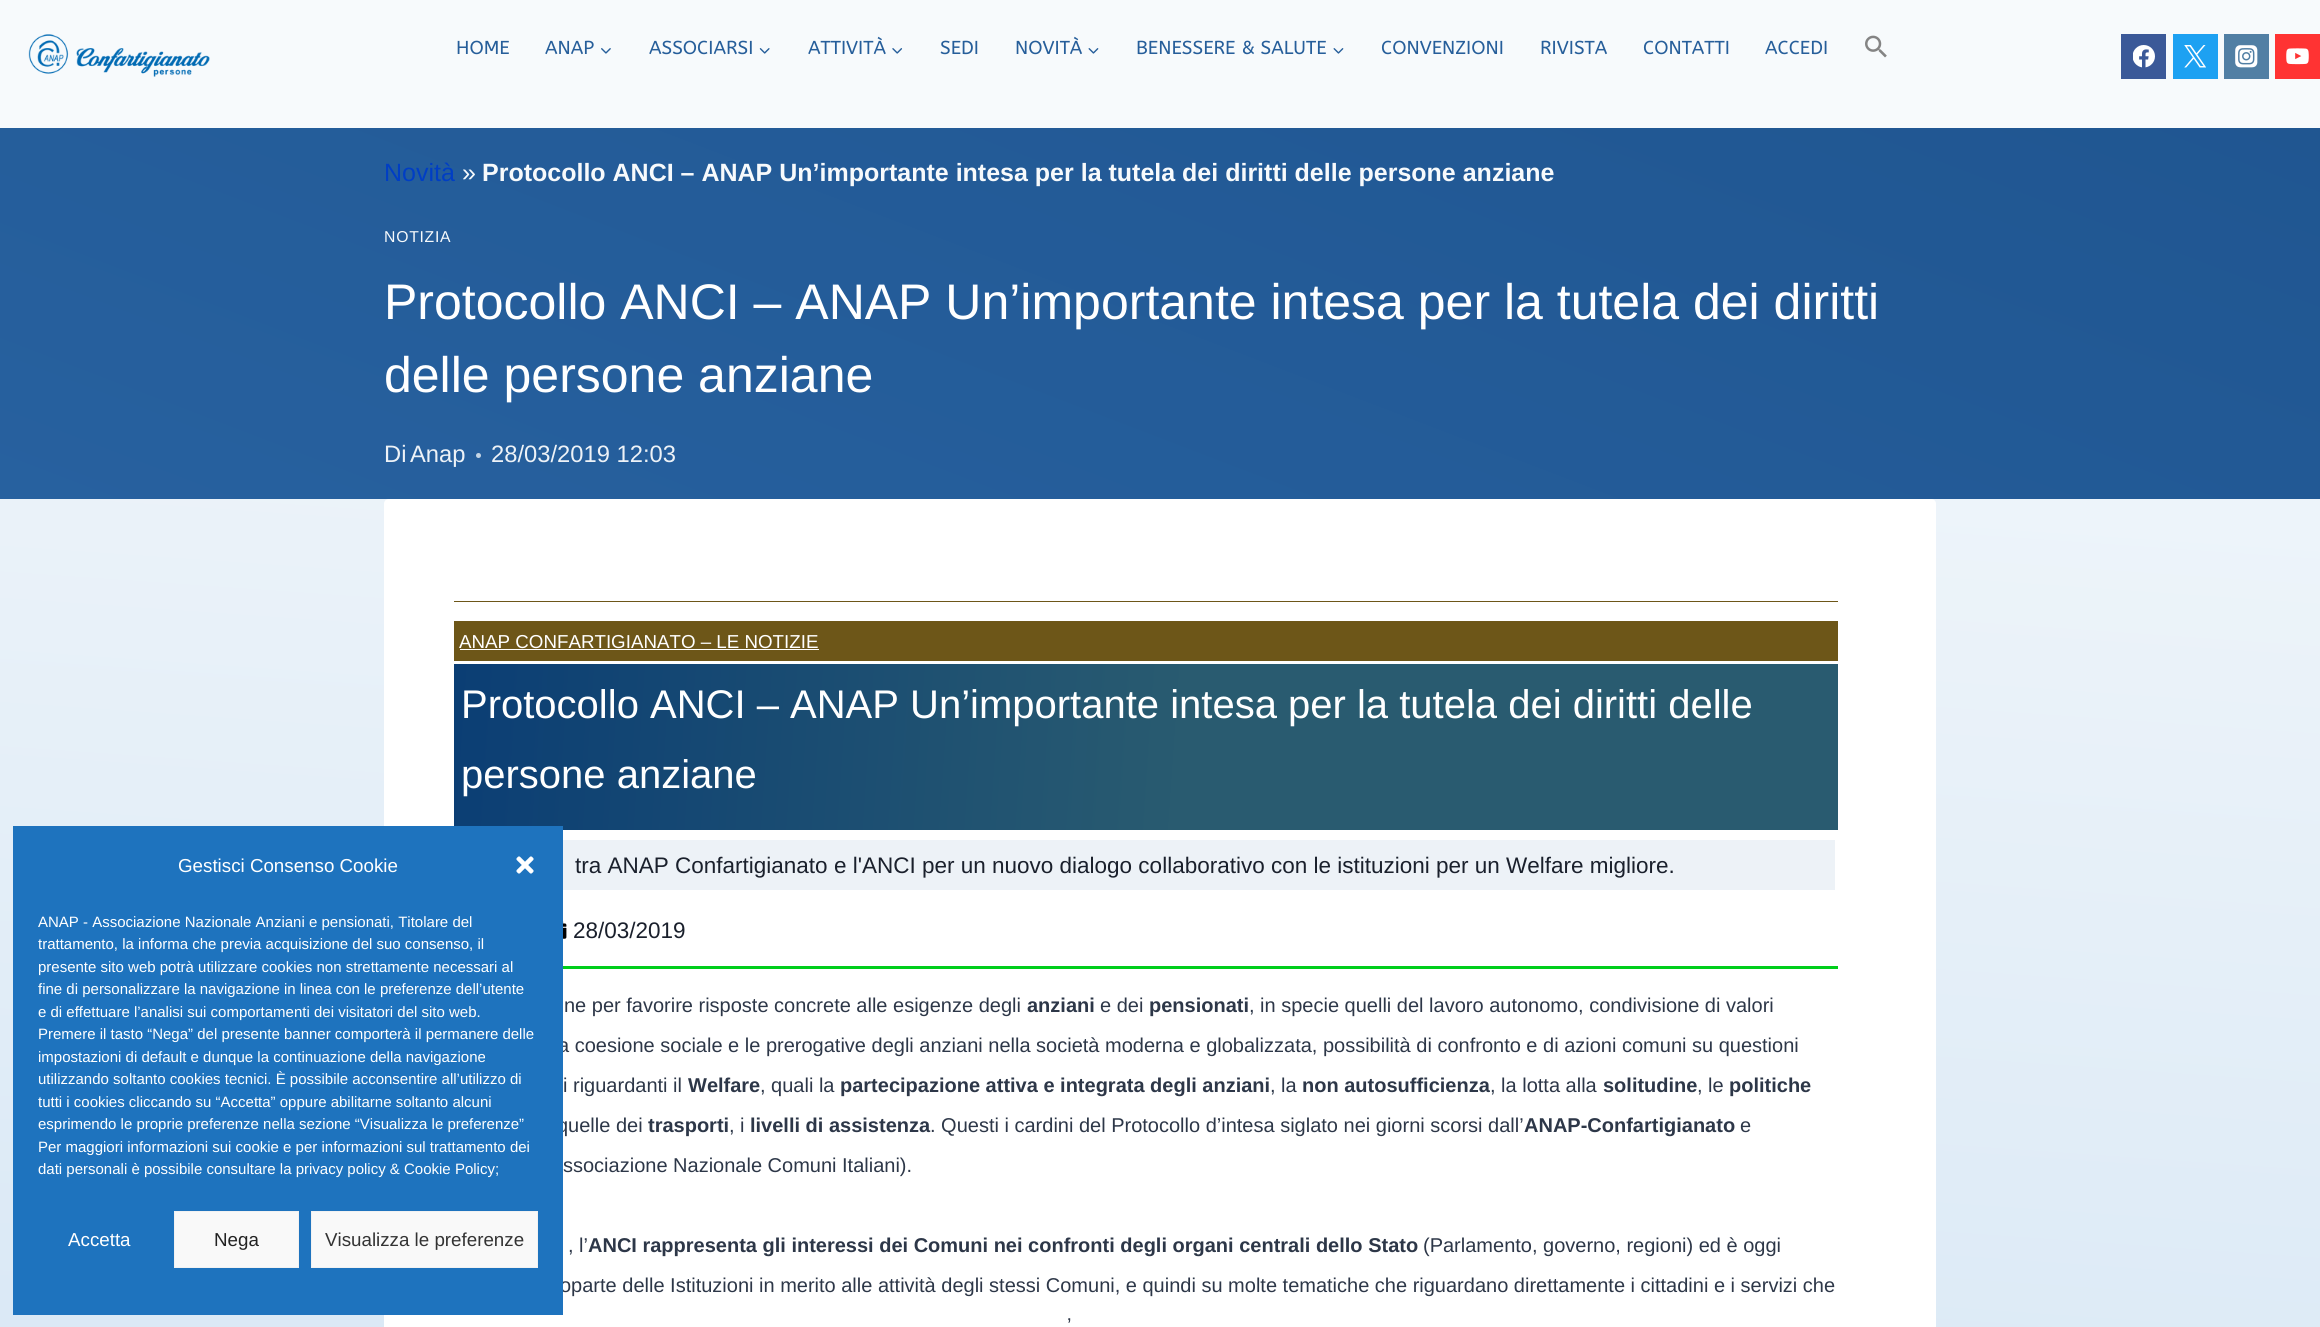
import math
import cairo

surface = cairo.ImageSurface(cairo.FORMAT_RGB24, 2320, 1327)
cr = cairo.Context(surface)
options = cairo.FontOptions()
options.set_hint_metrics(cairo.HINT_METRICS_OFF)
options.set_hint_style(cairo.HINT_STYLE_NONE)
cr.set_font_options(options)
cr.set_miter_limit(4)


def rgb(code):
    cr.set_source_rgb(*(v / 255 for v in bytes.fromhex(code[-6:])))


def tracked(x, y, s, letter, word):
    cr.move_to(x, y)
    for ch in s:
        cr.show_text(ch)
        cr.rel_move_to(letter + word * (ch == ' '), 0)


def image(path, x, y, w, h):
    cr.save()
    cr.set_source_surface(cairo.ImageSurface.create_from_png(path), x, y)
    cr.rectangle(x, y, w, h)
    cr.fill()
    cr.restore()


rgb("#ffffff")
cr.paint()
gradient = cairo.LinearGradient(1011, 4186, 1309, -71)
gradient.add_color_stop_rgba(0, 0.647, 0.788, 0.918, 1)
gradient.add_color_stop_rgba(1, 0.969, 0.98, 0.988, 1)
cr.set_source(gradient)
cr.rectangle(0, 499, 2320, 828)
cr.fill()
rgb("#f7fafc")
cr.rectangle(0, 0, 2320, 128)
cr.fill()
image("img/2.png", 28, 34, 182, 43)
image("img/3.png", 601, 48, 10, 6)
image("img/4.png", 759, 48, 11, 6)
image("img/5.png", 892, 48, 11, 6)
image("img/6.png", 1088, 48, 11, 6)
image("img/6.png", 1333, 48, 11, 6)
image("img/7.png", 1865, 35, 22, 23)
rgb("#3b5998")
cr.rectangle(2121, 34, 45, 45)
cr.fill()
image("img/8.png", 2133, 45, 22, 23)
rgb("#1da1f2")
cr.rectangle(2173, 34, 45, 45)
cr.fill()
image("img/9.png", 2184, 45, 22, 23)
rgb("#517fa4")
cr.rectangle(2224, 34, 45, 45)
cr.fill()
image("img/10.png", 2235, 45, 23, 23)
rgb("#ff3333")
cr.rectangle(2275, 34, 45, 45)
cr.fill()
image("img/11.png", 2286, 48, 23, 17)
gradient = cairo.LinearGradient(949, 863, 1371, -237)
gradient.add_color_stop_rgba(0, 0.153, 0.38, 0.624, 1)
gradient.add_color_stop_rgba(1, 0.125, 0.337, 0.569, 1)
cr.set_source(gradient)
cr.rectangle(0, 128, 2320, 371)
cr.fill()
rgb("#c5d5e5")
cr.arc(478.5, 455.5, 2.5, 0, 2 * math.pi)
cr.fill()
rgb("#ffffff")
cr.new_path()
cr.move_to(389, 499)
cr.line_to(1931, 499)
cr.curve_to(1934, 499, 1936, 501, 1936, 504)
cr.line_to(1936, 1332)
cr.line_to(384, 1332)
cr.line_to(384, 504)
cr.curve_to(384, 501, 386, 499, 389, 499)
cr.close_path()
cr.fill()
for x, y, w, h, color in [
    (454, 601, 1384, 1, "#6d5618"),
    (454, 621, 1384, 40, "#6d5618"),
    (460, 649, 359, 1, "#ffffff"),
]:
    rgb(color)
    cr.rectangle(x, y, w, h)
    cr.fill()
gradient = cairo.LinearGradient(451, 698, 1840, 795)
gradient.add_color_stop_rgba(0, 0.043, 0.243, 0.455, 1)
gradient.add_color_stop_rgba(0.53, 0.161, 0.357, 0.439, 1)
cr.set_source(gradient)
cr.rectangle(454, 664, 1384, 166)
cr.fill()
rgb("#edf2f7")
cr.rectangle(563, 840, 1272, 50)
cr.fill()
image("img/12.png", 563, 921, 4, 18)
rgb("#00ce1b")
cr.rectangle(563, 966, 1275, 3)
cr.fill()
cr.select_font_face("ABeeZee")
cr.set_font_size(18.75)
rgb("#265e9a")
for x, y, s in [
    (456, 54, "HOME"),
    (545, 54, "ANAP"),
    (649, 54, "ASSOCIARSI"),
    (808, 54, "ATTIVITÀ"),
    (940, 54, "SEDI"),
    (1015, 54, "NOVITÀ"),
    (1136, 54, "BENESSERE & SALUTE"),
    (1381, 54, "CONVENZIONI"),
    (1540, 54, "RIVISTA"),
    (1643, 54, "CONTATTI"),
    (1765, 54, "ACCEDI"),
]:
    cr.move_to(x, y)
    cr.show_text(s)
cr.select_font_face("Liberation Sans")
cr.set_font_size(25)
rgb("#003ec4")
cr.move_to(384, 181)
cr.show_text("Novità")
rgb("#f7fafc")
cr.move_to(462, 181)
cr.show_text("»")
cr.select_font_face("Liberation Sans", cairo.FONT_SLANT_NORMAL, cairo.FONT_WEIGHT_BOLD)
cr.move_to(482, 181)
cr.show_text("Protocollo ANCI – ANAP Un’importante intesa per la tutela dei diritti delle persone anziane")
cr.select_font_face("Liberation Sans")
cr.set_font_size(15.75)
tracked(384, 242, "NOTIZIA", 0.75, 0)
cr.set_font_size(50)
rgb("#ffffff")
cr.move_to(384, 319)
cr.show_text("Protocollo ANCI – ANAP Un’importante intesa per la tutela dei diritti")
cr.move_to(384, 392)
cr.show_text("delle persone anziane")
cr.set_font_size(23.75)
rgb("#edf2f7")
for x, y, s in [
    (384, 462, "Di"),
    (410, 462, "Anap"),
    (491, 462, "28/03/2019 12:03"),
]:
    cr.move_to(x, y)
    cr.show_text(s)
cr.set_font_size(18.75)
rgb("#ffffff")
cr.move_to(459, 648)
cr.show_text("ANAP CONFARTIGIANATO – LE NOTIZIE")
cr.set_font_size(40)
cr.move_to(461, 718)
cr.show_text("Protocollo ANCI – ANAP Un’importante intesa per la tutela dei diritti delle")
cr.move_to(461, 788)
cr.show_text("persone anziane")
cr.set_font_size(22.5)
rgb("#1a202c")
cr.move_to(575, 873)
cr.show_text("tra ANAP Confartigianato e l'ANCI per un nuovo dialogo collaborativo con le istituzioni per un Welfare migliore.")
cr.move_to(573, 938)
cr.show_text("28/03/2019")
cr.set_font_size(20)
rgb("#2d3748")
cr.move_to(564, 1012)
cr.show_text("ne per favorire risposte concrete alle esigenze degli")
cr.select_font_face("Liberation Sans", cairo.FONT_SLANT_NORMAL, cairo.FONT_WEIGHT_BOLD)
cr.move_to(1027, 1012)
cr.show_text("anziani")
cr.select_font_face("Liberation Sans")
cr.move_to(1100, 1012)
cr.show_text("e dei")
cr.select_font_face("Liberation Sans", cairo.FONT_SLANT_NORMAL, cairo.FONT_WEIGHT_BOLD)
cr.move_to(1149, 1012)
cr.show_text("pensionati")
cr.select_font_face("Liberation Sans")
for x, y, s in [
    (1249, 1012, ", in specie quelli del lavoro autonomo, condivisione di valori"),
    (558, 1052, "a coesione sociale e le prerogative degli anziani nella società moderna e globalizzata, possibilità di confronto e di azioni comuni su questioni"),
    (563, 1092, "i riguardanti il"),
]:
    cr.move_to(x, y)
    cr.show_text(s)
cr.select_font_face("Liberation Sans", cairo.FONT_SLANT_NORMAL, cairo.FONT_WEIGHT_BOLD)
cr.move_to(688, 1092)
cr.show_text("Welfare")
cr.select_font_face("Liberation Sans")
cr.move_to(760, 1092)
cr.show_text(", quali la")
cr.select_font_face("Liberation Sans", cairo.FONT_SLANT_NORMAL, cairo.FONT_WEIGHT_BOLD)
cr.move_to(840, 1092)
cr.show_text("partecipazione attiva e integrata degli anziani")
cr.select_font_face("Liberation Sans")
cr.move_to(1270, 1092)
cr.show_text(", la")
cr.select_font_face("Liberation Sans", cairo.FONT_SLANT_NORMAL, cairo.FONT_WEIGHT_BOLD)
cr.move_to(1302, 1092)
cr.show_text("non autosufficienza")
cr.select_font_face("Liberation Sans")
cr.move_to(1490, 1092)
cr.show_text(", la lotta alla")
cr.select_font_face("Liberation Sans", cairo.FONT_SLANT_NORMAL, cairo.FONT_WEIGHT_BOLD)
cr.move_to(1603, 1092)
cr.show_text("solitudine")
cr.select_font_face("Liberation Sans")
cr.move_to(1697, 1092)
cr.show_text(", le")
cr.select_font_face("Liberation Sans", cairo.FONT_SLANT_NORMAL, cairo.FONT_WEIGHT_BOLD)
cr.move_to(1729, 1092)
cr.show_text("politiche")
cr.select_font_face("Liberation Sans")
cr.move_to(557, 1132)
cr.show_text("quelle dei")
cr.select_font_face("Liberation Sans", cairo.FONT_SLANT_NORMAL, cairo.FONT_WEIGHT_BOLD)
cr.move_to(648, 1132)
cr.show_text("trasporti")
cr.select_font_face("Liberation Sans")
cr.move_to(729, 1132)
cr.show_text(", i")
cr.select_font_face("Liberation Sans", cairo.FONT_SLANT_NORMAL, cairo.FONT_WEIGHT_BOLD)
cr.move_to(750, 1132)
cr.show_text("livelli di assistenza")
cr.select_font_face("Liberation Sans")
cr.move_to(930, 1132)
cr.show_text(". Questi i cardini del Protocollo d’intesa siglato nei giorni scorsi dall’")
cr.select_font_face("Liberation Sans", cairo.FONT_SLANT_NORMAL, cairo.FONT_WEIGHT_BOLD)
cr.move_to(1524, 1132)
cr.show_text("ANAP-Confartigianato")
cr.select_font_face("Liberation Sans")
for x, y, s in [
    (1740, 1132, "e"),
    (563, 1172, "ssociazione Nazionale Comuni Italiani)."),
    (568, 1252, ", l’"),
]:
    cr.move_to(x, y)
    cr.show_text(s)
cr.select_font_face("Liberation Sans", cairo.FONT_SLANT_NORMAL, cairo.FONT_WEIGHT_BOLD)
cr.move_to(588, 1252)
cr.show_text("ANCI rappresenta gli interessi dei Comuni nei confronti degli organi centrali dello Stato")
cr.select_font_face("Liberation Sans")
cr.move_to(1423, 1252)
cr.show_text("(Parlamento, governo, regioni) ed è oggi")
cr.move_to(560, 1292)
cr.show_text("oparte delle Istituzioni in merito alle attività degli stessi Comuni, e quindi su molte tematiche che riguardano direttamente i cittadini e i servizi che")
rgb("#1e73be")
cr.rectangle(13, 826, 550, 489)
cr.fill()
cr.set_font_size(15)
rgb("#ffffff")
for x, y, s in [
    (38, 1174, "dati personali è possibile consultare la privacy policy & Cookie Policy;"),
    (38, 1152, "Per maggiori informazioni sui cookie e per informazioni sul trattamento dei"),
    (38, 1129, "esprimendo le proprie preferenze nella sezione “Visualizza le preferenze”"),
    (38, 1107, "tutti i cookies cliccando su “Accetta” oppure abilitarne soltanto alcuni"),
    (38, 1084, "utilizzando soltanto cookies tecnici. È possibile acconsentire all’utilizzo di"),
    (38, 1062, "impostazioni di default e dunque la continuazione della navigazione"),
    (38, 1039, "Premere il tasto “Nega” del presente banner comporterà il permanere delle"),
    (38, 1017, "e di effettuare l’analisi sui comportamenti dei visitatori del sito web."),
    (38, 994, "fine di personalizzare la navigazione in linea con le preferenze dell’utente"),
    (38, 972, "presente sito web potrà utilizzare cookies non strettamente necessari al"),
    (38, 949, "trattamento, la informa che previa acquisizione del suo consenso, il"),
    (38, 927, "ANAP - Associazione Nazionale Anziani e pensionati, Titolare del"),
]:
    cr.move_to(x, y)
    cr.show_text(s)
image("img/1.png", 516, 856, 18, 18)
rgb("#f9f9f9")
cr.rectangle(311.5, 1211.5, 226, 56)
cr.fill_preserve()
rgb("#f2f2f2")
cr.set_line_width(1)
cr.stroke()
cr.set_font_size(18.75)
rgb("#333333")
cr.move_to(325, 1246)
cr.show_text("Visualizza le preferenze")
rgb("#f9f9f9")
cr.rectangle(174.5, 1211.5, 124, 56)
cr.fill_preserve()
rgb("#f2f2f2")
cr.stroke()
rgb("#222222")
cr.move_to(214, 1246)
cr.show_text("Nega")
rgb("#ffffff")
cr.move_to(68, 1246)
cr.show_text("Accetta")
cr.move_to(178, 872)
cr.show_text("Gestisci Consenso Cookie")
cr.set_font_size(20)
rgb("#2d3748")
cr.move_to(1067, 1332)
cr.show_text("’")
surface.write_to_png("page.png")
